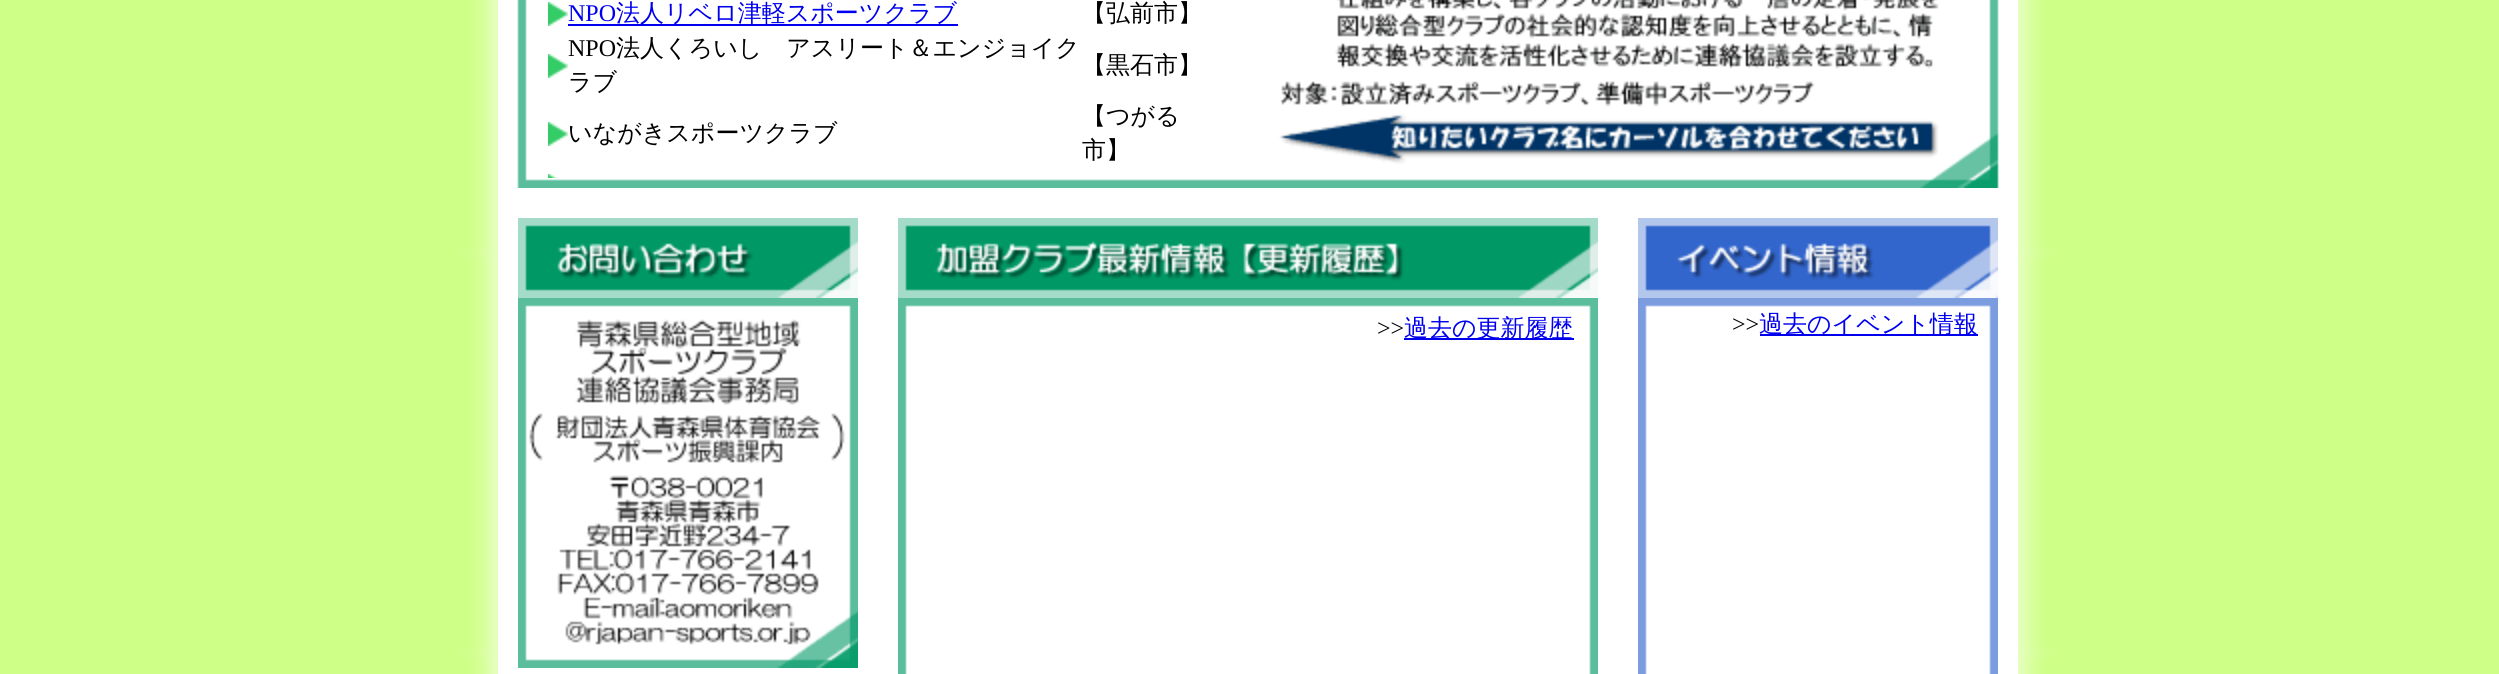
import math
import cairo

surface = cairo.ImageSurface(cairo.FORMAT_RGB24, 2499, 674)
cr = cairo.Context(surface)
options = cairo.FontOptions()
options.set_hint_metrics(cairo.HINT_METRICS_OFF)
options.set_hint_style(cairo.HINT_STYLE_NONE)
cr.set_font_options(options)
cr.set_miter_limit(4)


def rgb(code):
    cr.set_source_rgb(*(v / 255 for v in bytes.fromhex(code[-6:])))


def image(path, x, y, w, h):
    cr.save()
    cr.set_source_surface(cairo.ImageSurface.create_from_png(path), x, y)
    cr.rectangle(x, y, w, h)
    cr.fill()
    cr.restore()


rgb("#ceff86")
cr.paint()
rgb("#ffffff")
cr.rectangle(498, 0, 1520, 674)
cr.fill()
image("img/1.png", 458, 0, 40, 674)
image("img/2.png", 2018, 0, 40, 674)
image("img/3.png", 517, 0, 1482, 188)
image("img/4.png", 548, 2, 20, 24)
rgb("#0000ee")
cr.rectangle(568, 24, 390, 2)
cr.fill()
image("img/4.png", 548, 54, 20, 24)
image("img/4.png", 548, 122, 20, 24)
image("img/5.png", 548, 174, 10, 4)
image("img/6.png", 1279, 0, 669, 168)
image("img/7.png", 518, 218, 340, 80)
image("img/8.png", 518, 298, 340, 370)
image("img/9.png", 898, 218, 700, 80)
image("img/10.png", 1638, 218, 360, 80)
image("img/11.png", 898, 298, 700, 376)
cr.rectangle(1404, 338, 170, 2)
cr.fill()
image("img/12.png", 1638, 298, 360, 376)
cr.rectangle(1760, 334, 218, 2)
cr.fill()
cr.select_font_face("Liberation Serif")
cr.set_font_size(24)
cr.move_to(568, 21)
cr.show_text("NPO")
cr.select_font_face("WenQuanYi Zen Hei Medium")
cr.move_to(616, 21)
cr.show_text("法人リベロ津軽スポーツクラブ")
rgb("#000000")
cr.move_to(1082, 21)
cr.show_text("【弘前市】")
cr.select_font_face("Liberation Serif")
cr.move_to(568, 56)
cr.show_text("NPO")
cr.select_font_face("WenQuanYi Zen Hei Medium")
for x, y, s in [
    (616, 56, "法人くろいし　アスリート＆エンジョイク"),
    (568, 90, "ラブ"),
    (1082, 73, "【黒石市】"),
    (568, 141, "いながきスポーツクラブ"),
    (1082, 124, "【つがる"),
    (1082, 158, "市】"),
]:
    cr.move_to(x, y)
    cr.show_text(s)
cr.select_font_face("Liberation Serif")
cr.move_to(1377, 336)
cr.show_text(">>")
cr.select_font_face("WenQuanYi Zen Hei Medium")
rgb("#0000ee")
cr.move_to(1404, 336)
cr.show_text("過去の更新履歴")
cr.select_font_face("Liberation Serif")
rgb("#000000")
cr.move_to(1732, 332)
cr.show_text(">>")
cr.select_font_face("WenQuanYi Zen Hei Medium")
rgb("#0000ee")
cr.move_to(1759, 332)
cr.show_text("過去のイベント情報")
surface.write_to_png("page.png")
